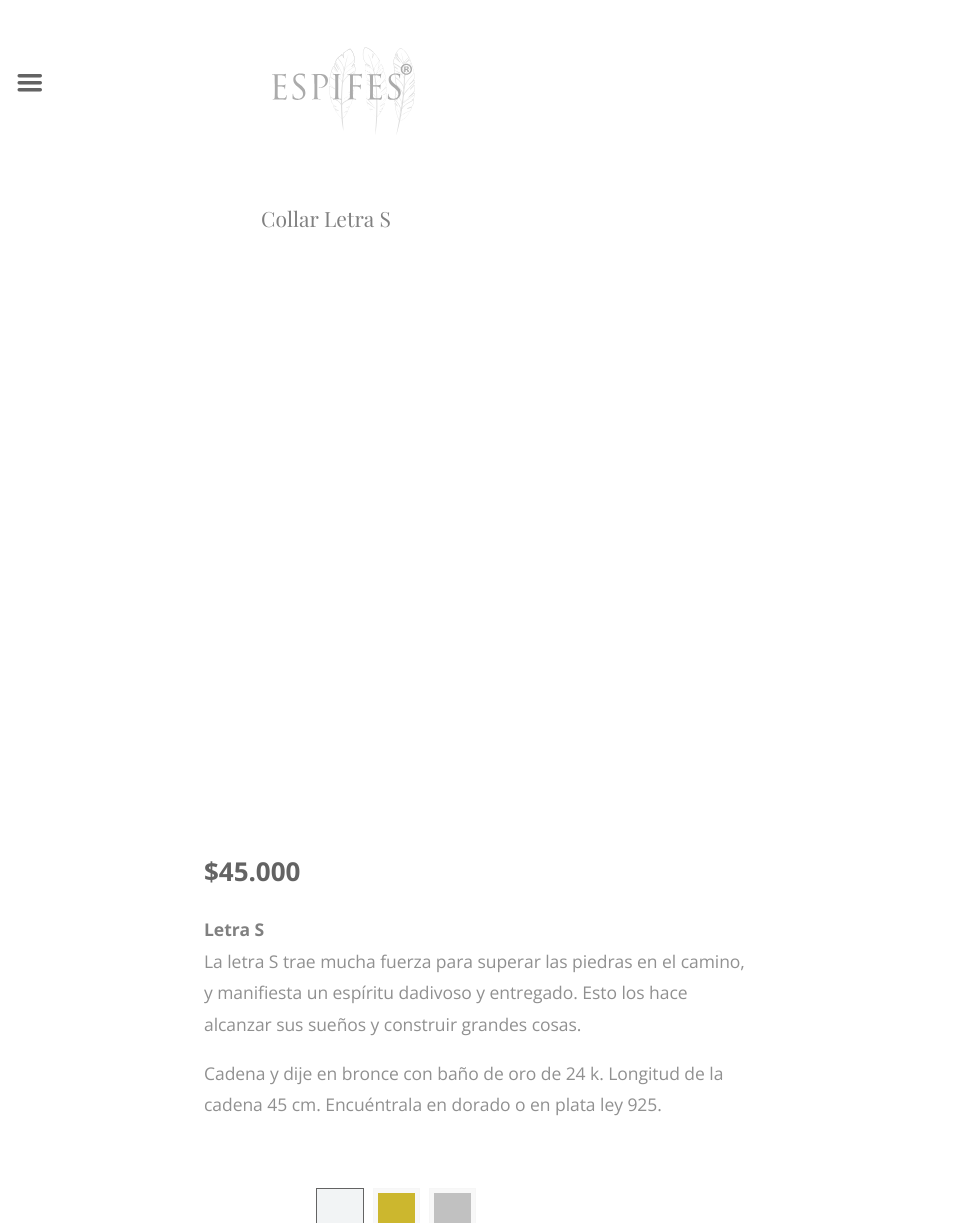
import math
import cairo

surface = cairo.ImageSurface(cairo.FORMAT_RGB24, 957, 1223)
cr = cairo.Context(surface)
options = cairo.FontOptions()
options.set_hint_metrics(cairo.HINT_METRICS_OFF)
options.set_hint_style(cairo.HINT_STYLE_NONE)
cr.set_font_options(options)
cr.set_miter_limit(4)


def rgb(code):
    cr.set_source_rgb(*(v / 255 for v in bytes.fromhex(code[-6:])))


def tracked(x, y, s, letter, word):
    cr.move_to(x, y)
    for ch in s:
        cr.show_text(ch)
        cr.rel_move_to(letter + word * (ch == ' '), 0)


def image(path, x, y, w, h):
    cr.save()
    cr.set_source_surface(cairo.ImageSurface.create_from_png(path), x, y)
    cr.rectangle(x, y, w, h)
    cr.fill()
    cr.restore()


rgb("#ffffff")
cr.paint()
image("img/1.png", 17, 74, 25, 18)
image("img/2.png", 272, 47, 143, 88)
rgb("#f2f4f5")
cr.rectangle(316.5, 1188.5, 47, 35)
cr.fill_preserve()
rgb("#636363")
cr.set_line_width(1)
cr.stroke()
rgb("#f8f8f8")
cr.rectangle(373.5, 1188.5, 46, 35)
cr.fill_preserve()
rgb("#f6f6f6")
cr.stroke()
rgb("#ccb72e")
cr.rectangle(378, 1193, 37, 30)
cr.fill()
rgb("#f8f8f8")
cr.rectangle(429.5, 1188.5, 46, 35)
cr.fill_preserve()
rgb("#f6f6f6")
cr.stroke()
rgb("#c1c1c1")
cr.rectangle(434, 1193, 37, 30)
cr.fill()
cr.select_font_face("Playfair Display")
cr.set_font_size(21)
rgb("#808080")
cr.move_to(261, 227)
cr.show_text("Collar Letra S")
cr.select_font_face("Open Sans", cairo.FONT_SLANT_NORMAL, cairo.FONT_WEIGHT_BOLD)
cr.set_font_size(26)
rgb("#636363")
tracked(204, 881, "$45.000", -0.05, 0)
cr.set_font_size(17.5)
rgb("#808080")
tracked(204, 936, "Letra S", -0.05, 0)
cr.select_font_face("Open Sans")
rgb("#909090")
for x, y, s in [
    (204, 968, "La letra S trae mucha fuerza para superar las piedras en el camino,"),
    (204, 999, "y manifiesta un espíritu dadivoso y entregado. Esto los hace"),
    (204, 1031, "alcanzar sus sueños y construir grandes cosas."),
    (204, 1080, "Cadena y dije en bronce con baño de oro de 24 k. Longitud de la"),
    (204, 1111, "cadena 45 cm. Encuéntrala en dorado o en plata ley 925."),
]:
    tracked(x, y, s, -0.05, 0)
surface.write_to_png("page.png")
